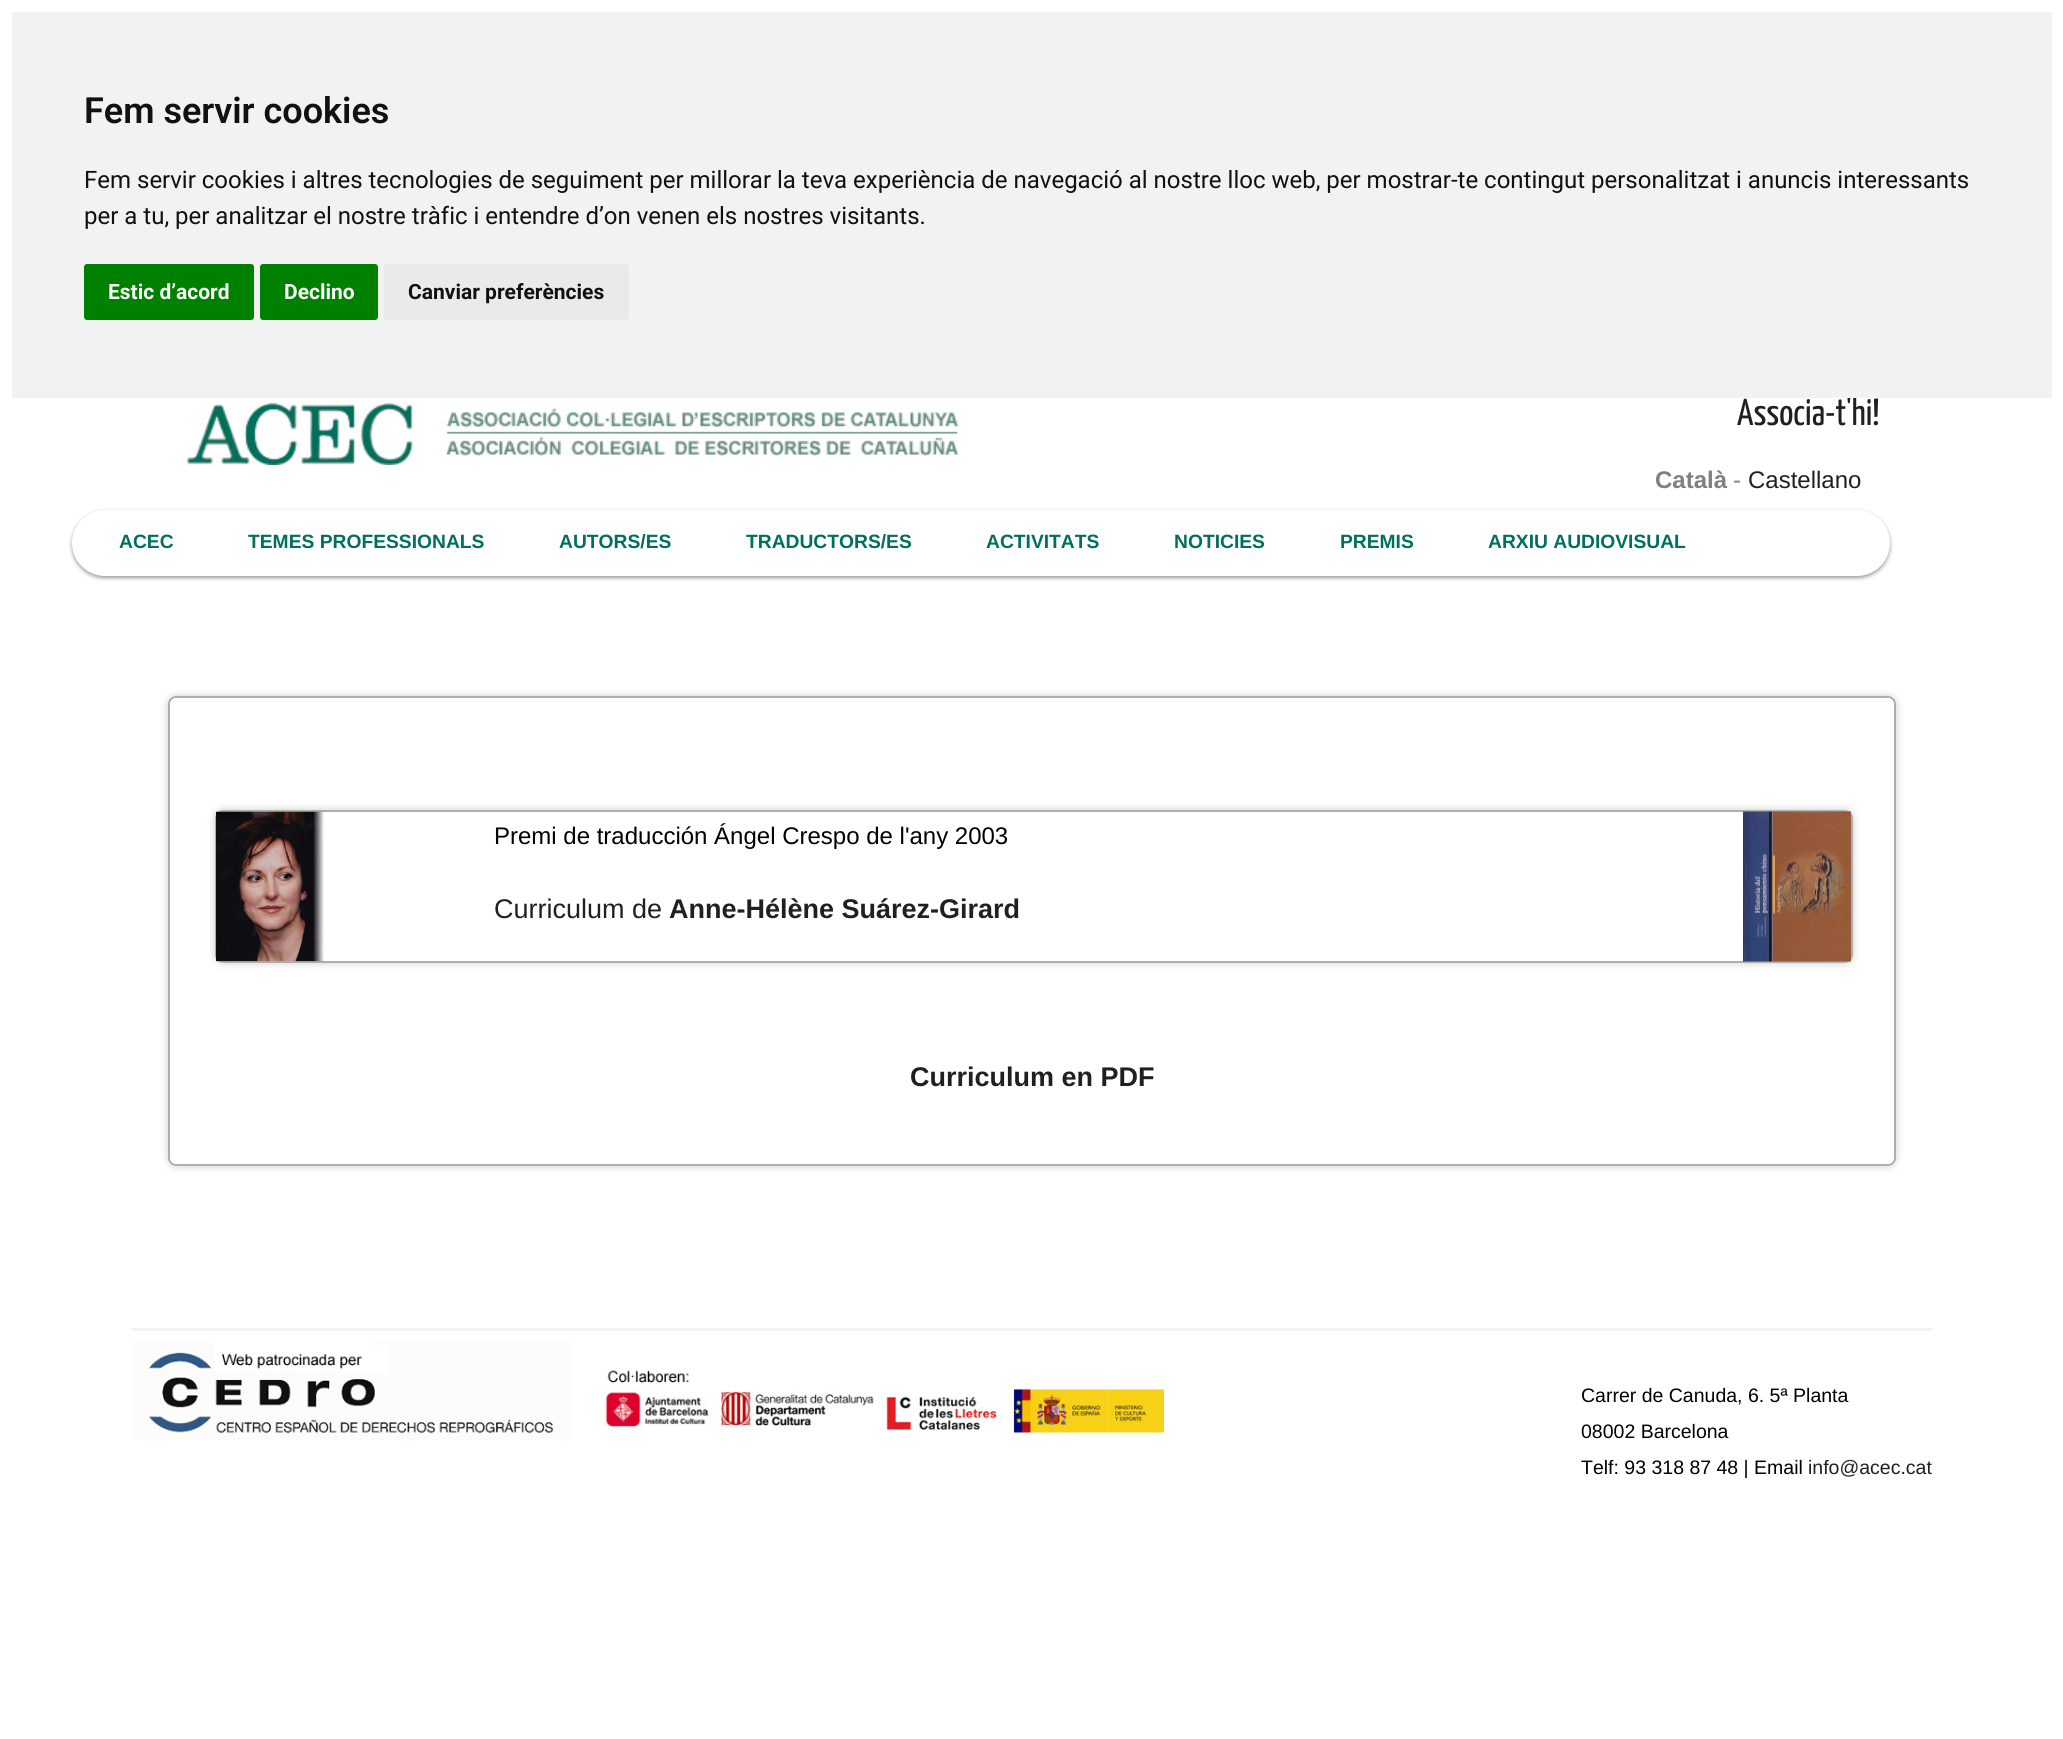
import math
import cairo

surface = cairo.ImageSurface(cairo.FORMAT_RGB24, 2063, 1739)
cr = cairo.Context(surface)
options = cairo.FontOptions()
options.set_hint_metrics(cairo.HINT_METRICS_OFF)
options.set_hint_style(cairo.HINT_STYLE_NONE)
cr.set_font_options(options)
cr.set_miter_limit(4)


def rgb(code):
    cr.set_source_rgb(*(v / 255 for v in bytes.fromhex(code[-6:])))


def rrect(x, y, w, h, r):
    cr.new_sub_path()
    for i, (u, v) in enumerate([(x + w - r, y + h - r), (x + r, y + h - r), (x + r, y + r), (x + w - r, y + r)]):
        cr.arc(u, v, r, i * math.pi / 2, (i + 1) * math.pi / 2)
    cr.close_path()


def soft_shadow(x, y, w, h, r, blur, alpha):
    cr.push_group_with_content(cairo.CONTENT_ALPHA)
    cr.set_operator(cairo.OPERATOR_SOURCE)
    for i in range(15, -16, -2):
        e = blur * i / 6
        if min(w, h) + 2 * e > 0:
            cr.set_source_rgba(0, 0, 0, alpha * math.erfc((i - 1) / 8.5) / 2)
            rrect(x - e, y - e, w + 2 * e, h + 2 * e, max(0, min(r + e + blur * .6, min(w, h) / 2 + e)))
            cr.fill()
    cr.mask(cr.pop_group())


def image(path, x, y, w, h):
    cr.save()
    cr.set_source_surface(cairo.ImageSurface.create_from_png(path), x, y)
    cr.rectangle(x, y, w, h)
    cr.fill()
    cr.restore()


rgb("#ffffff")
cr.paint()
image("img/1.png", 186, 402, 773, 63)
rgb("#000000")
soft_shadow(72, 512, 1818, 66, 33, 2, 0.4)
rgb("#ffffff")
rrect(72, 510, 1818, 66, 33)
cr.fill()
cr.save()
cr.set_fill_rule(cairo.FILL_RULE_EVEN_ODD)
cr.new_path()
cr.move_to(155, 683)
cr.line_to(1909, 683)
cr.line_to(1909, 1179)
cr.line_to(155, 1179)
cr.close_path()
cr.move_to(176, 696)
cr.line_to(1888, 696)
cr.curve_to(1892.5, 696, 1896, 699.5, 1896, 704)
cr.line_to(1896, 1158)
cr.curve_to(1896, 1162.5, 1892.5, 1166, 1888, 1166)
cr.line_to(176, 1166)
cr.curve_to(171.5, 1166, 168, 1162.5, 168, 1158)
cr.line_to(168, 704)
cr.curve_to(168, 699.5, 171.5, 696, 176, 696)
cr.close_path()
cr.clip()
rgb("#cccccc")
soft_shadow(168, 696, 1728, 470, 8, 4, 1)
cr.restore()
rrect(169, 697, 1726, 468, 7)
rgb("#aeaeae")
cr.stroke()
cr.save()
cr.set_fill_rule(cairo.FILL_RULE_EVEN_ODD)
cr.new_path()
cr.move_to(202, 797)
cr.line_to(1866, 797)
cr.line_to(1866, 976)
cr.line_to(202, 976)
cr.close_path()
cr.move_to(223, 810)
cr.line_to(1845, 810)
cr.curve_to(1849.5, 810, 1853, 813.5, 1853, 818)
cr.line_to(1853, 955)
cr.curve_to(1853, 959.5, 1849.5, 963, 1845, 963)
cr.line_to(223, 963)
cr.curve_to(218.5, 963, 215, 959.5, 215, 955)
cr.line_to(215, 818)
cr.curve_to(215, 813.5, 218.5, 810, 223, 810)
cr.close_path()
cr.clip()
rgb("#cccccc")
soft_shadow(215, 810, 1638, 153, 8, 4, 1)
cr.restore()
rrect(216, 811, 1636, 151, 7)
cr.stroke()
image("img/2.png", 216, 811, 108, 151)
image("img/3.png", 1743, 811, 108, 151)
rgb("#f3f3f3")
cr.rectangle(132, 1328, 1800, 3)
cr.fill()
image("img/4.png", 132, 1342, 1032, 98)
cr.select_font_face("Yanone Kaffeesatz")
cr.set_font_size(37.5)
rgb("#202020")
cr.move_to(1737, 425)
cr.show_text("Associa-t'hi!")
rgb("#f2f2f2")
cr.rectangle(12, 12, 2040, 386)
cr.fill()
rgb("#eaeaea")
rrect(384, 264, 245, 56, 3)
cr.fill()
cr.select_font_face("Roboto", cairo.FONT_SLANT_NORMAL, cairo.FONT_WEIGHT_BOLD)
cr.set_font_size(21)
rgb("#111111")
cr.move_to(408, 299)
cr.show_text("Canviar preferències")
rgb("#008000")
rrect(260, 264, 118, 56, 3)
cr.fill()
rgb("#ffffff")
cr.move_to(284, 299)
cr.show_text("Declino")
rgb("#008000")
rrect(84, 264, 170, 56, 3)
cr.fill()
rgb("#ffffff")
cr.move_to(108, 299)
cr.show_text("Estic d’acord")
cr.select_font_face("Roboto")
cr.set_font_size(24)
rgb("#111111")
cr.move_to(84, 224)
cr.show_text("per a tu, per analitzar el nostre tràfic i entendre d’on venen els nostres visitants.")
cr.move_to(84, 188)
cr.show_text("Fem servir cookies i altres tecnologies de seguiment per millorar la teva experiència de navegació al nostre lloc web, per mostrar-te contingut personalitzat i anuncis interessants")
cr.select_font_face("Roboto SemiBold")
cr.set_font_size(36)
cr.move_to(84, 123)
cr.show_text("Fem servir cookies")
cr.select_font_face("Liberation Sans", cairo.FONT_SLANT_NORMAL, cairo.FONT_WEIGHT_BOLD)
cr.set_font_size(24)
rgb("#808080")
cr.move_to(1655, 488)
cr.show_text("Català")
cr.select_font_face("Liberation Sans")
cr.move_to(1733, 488)
cr.show_text("-")
rgb("#202020")
cr.move_to(1748, 488)
cr.show_text("Castellano")
cr.select_font_face("Liberation Sans", cairo.FONT_SLANT_NORMAL, cairo.FONT_WEIGHT_BOLD)
cr.set_font_size(19.25)
rgb("#00705c")
for x, y, s in [
    (119, 548, "ACEC"),
    (248, 548, "TEMES PROFESSIONALS"),
    (559, 548, "AUTORS/ES"),
    (746, 548, "TRADUCTORS/ES"),
    (986, 548, "ACTIVITATS"),
    (1174, 548, "NOTICIES"),
    (1340, 548, "PREMIS"),
    (1488, 548, "ARXIU AUDIOVISUAL"),
]:
    cr.move_to(x, y)
    cr.show_text(s)
cr.select_font_face("Liberation Sans")
cr.set_font_size(24)
rgb("#000000")
cr.move_to(494, 844)
cr.show_text("Premi de traducción Ángel Crespo de l'any 2003")
cr.set_font_size(27)
rgb("#202020")
cr.move_to(494, 918)
cr.show_text("Curriculum de")
cr.select_font_face("Liberation Sans", cairo.FONT_SLANT_NORMAL, cairo.FONT_WEIGHT_BOLD)
cr.move_to(669, 918)
cr.show_text("Anne-Hélène Suárez-Girard")
cr.move_to(910, 1086)
cr.show_text("Curriculum en PDF")
cr.select_font_face("Liberation Sans")
cr.set_font_size(19.5)
rgb("#000000")
for x, y, s in [
    (1581, 1402, "Carrer de Canuda, 6. 5ª Planta"),
    (1581, 1438, "08002 Barcelona"),
    (1581, 1474, "Telf: 93 318 87 48 | Email"),
]:
    cr.move_to(x, y)
    cr.show_text(s)
rgb("#202020")
cr.move_to(1808, 1474)
cr.show_text("info@acec.cat")
surface.write_to_png("page.png")
